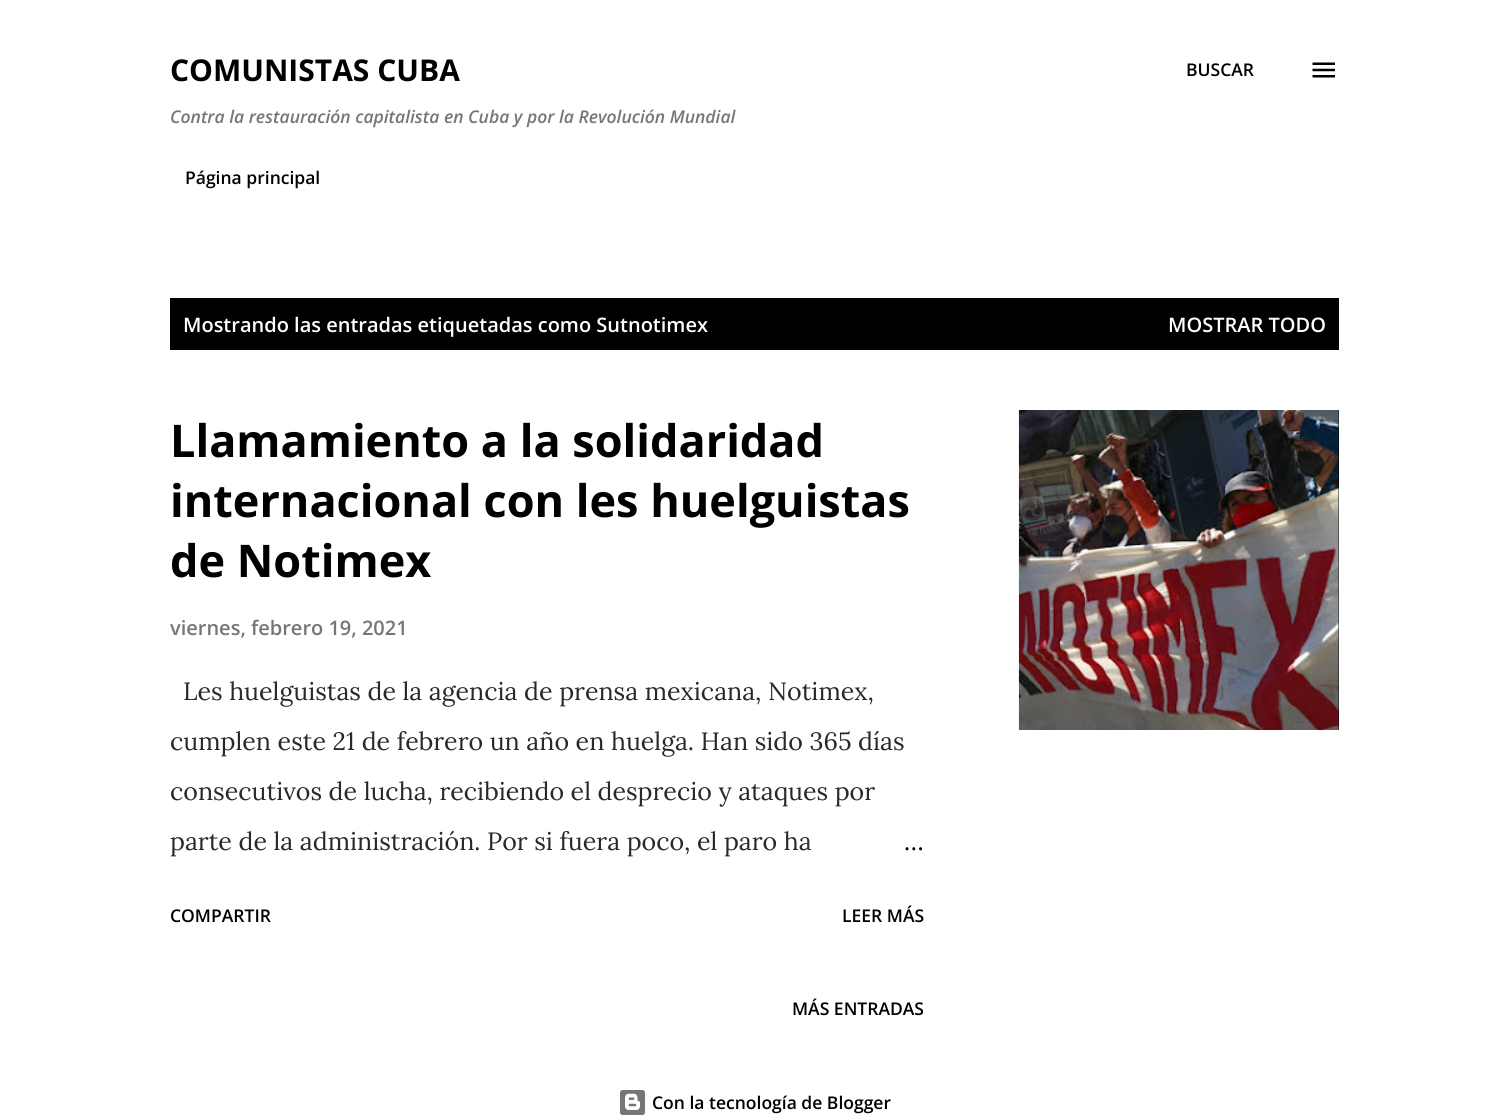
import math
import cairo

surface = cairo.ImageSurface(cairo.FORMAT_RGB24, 1508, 1115)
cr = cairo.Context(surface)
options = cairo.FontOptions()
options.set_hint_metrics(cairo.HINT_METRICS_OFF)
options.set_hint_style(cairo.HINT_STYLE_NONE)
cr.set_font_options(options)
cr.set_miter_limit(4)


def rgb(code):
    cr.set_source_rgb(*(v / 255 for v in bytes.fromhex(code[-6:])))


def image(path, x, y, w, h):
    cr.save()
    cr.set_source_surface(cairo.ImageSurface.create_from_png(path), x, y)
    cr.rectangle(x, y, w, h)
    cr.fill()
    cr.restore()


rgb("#ffffff")
cr.paint()
image("img/1.png", 1312, 62, 23, 16)
rgb("#000000")
cr.rectangle(170, 298, 1169, 52)
cr.fill()
cr.rectangle(1338, 410, 1, 320)
cr.fill()
image("img/2.png", 1018, 410, 321, 320)
image("img/3.png", 620, 1090, 25, 25)
cr.select_font_face("Open Sans", cairo.FONT_SLANT_NORMAL, cairo.FONT_WEIGHT_BOLD)
cr.set_font_size(30)
cr.move_to(170, 81)
cr.show_text("COMUNISTAS CUBA")
cr.select_font_face("Open Sans SemiBold", cairo.FONT_SLANT_ITALIC)
cr.set_font_size(17.5)
rgb("#767676")
cr.move_to(170, 123)
cr.show_text("Contra la restauración capitalista en Cuba y por la Revolución Mundial")
cr.select_font_face("Open Sans SemiBold")
rgb("#000000")
cr.move_to(1186, 76)
cr.show_text("BUSCAR")
cr.move_to(185, 184)
cr.show_text("Página principal")
cr.set_font_size(20)
rgb("#ffffff")
cr.move_to(183, 332)
cr.show_text("Mostrando las entradas etiquetadas como Sutnotimex")
cr.move_to(1168, 332)
cr.show_text("MOSTRAR TODO")
cr.select_font_face("Open Sans", cairo.FONT_SLANT_NORMAL, cairo.FONT_WEIGHT_BOLD)
cr.set_font_size(45)
rgb("#000000")
for x, y, s in [
    (170, 457, "Llamamiento a la solidaridad"),
    (170, 517, "internacional con les huelguistas"),
    (170, 577, "de Notimex"),
]:
    cr.move_to(x, y)
    cr.show_text(s)
cr.select_font_face("Open Sans SemiBold")
cr.set_font_size(20)
rgb("#767676")
cr.move_to(170, 635)
cr.show_text("viernes, febrero 19, 2021")
cr.select_font_face("Lora")
cr.set_font_size(25)
rgb("#292929")
for x, y, s in [
    (183, 700, "Les huelguistas de la agencia de prensa mexicana, Notimex,"),
    (170, 750, "cumplen este 21 de febrero un año en huelga. Han sido 365 días"),
    (170, 800, "consecutivos de lucha, recibiendo el desprecio y ataques por"),
    (170, 850, "parte de la administración. Por si fuera poco, el paro ha"),
]:
    cr.move_to(x, y)
    cr.show_text(s)
gradient = cairo.LinearGradient(924, 841, 804, 841)
gradient.add_color_stop_rgba(0, 1, 1, 1, 1)
gradient.add_color_stop_rgba(0.2, 1, 1, 1, 1)
gradient.add_color_stop_rgba(1, 1, 1, 1, 0)
cr.set_source(gradient)
cr.rectangle(806, 837, 5, 13)
cr.fill()
rgb("#000000")
cr.move_to(904, 850)
cr.show_text("…")
cr.select_font_face("Open Sans SemiBold")
cr.set_font_size(17.5)
for x, y, s in [
    (170, 922, "COMPARTIR"),
    (842, 922, "LEER MÁS"),
    (792, 1015, "MÁS ENTRADAS"),
    (652, 1109, "Con la tecnología de Blogger"),
]:
    cr.move_to(x, y)
    cr.show_text(s)
surface.write_to_png("page.png")
